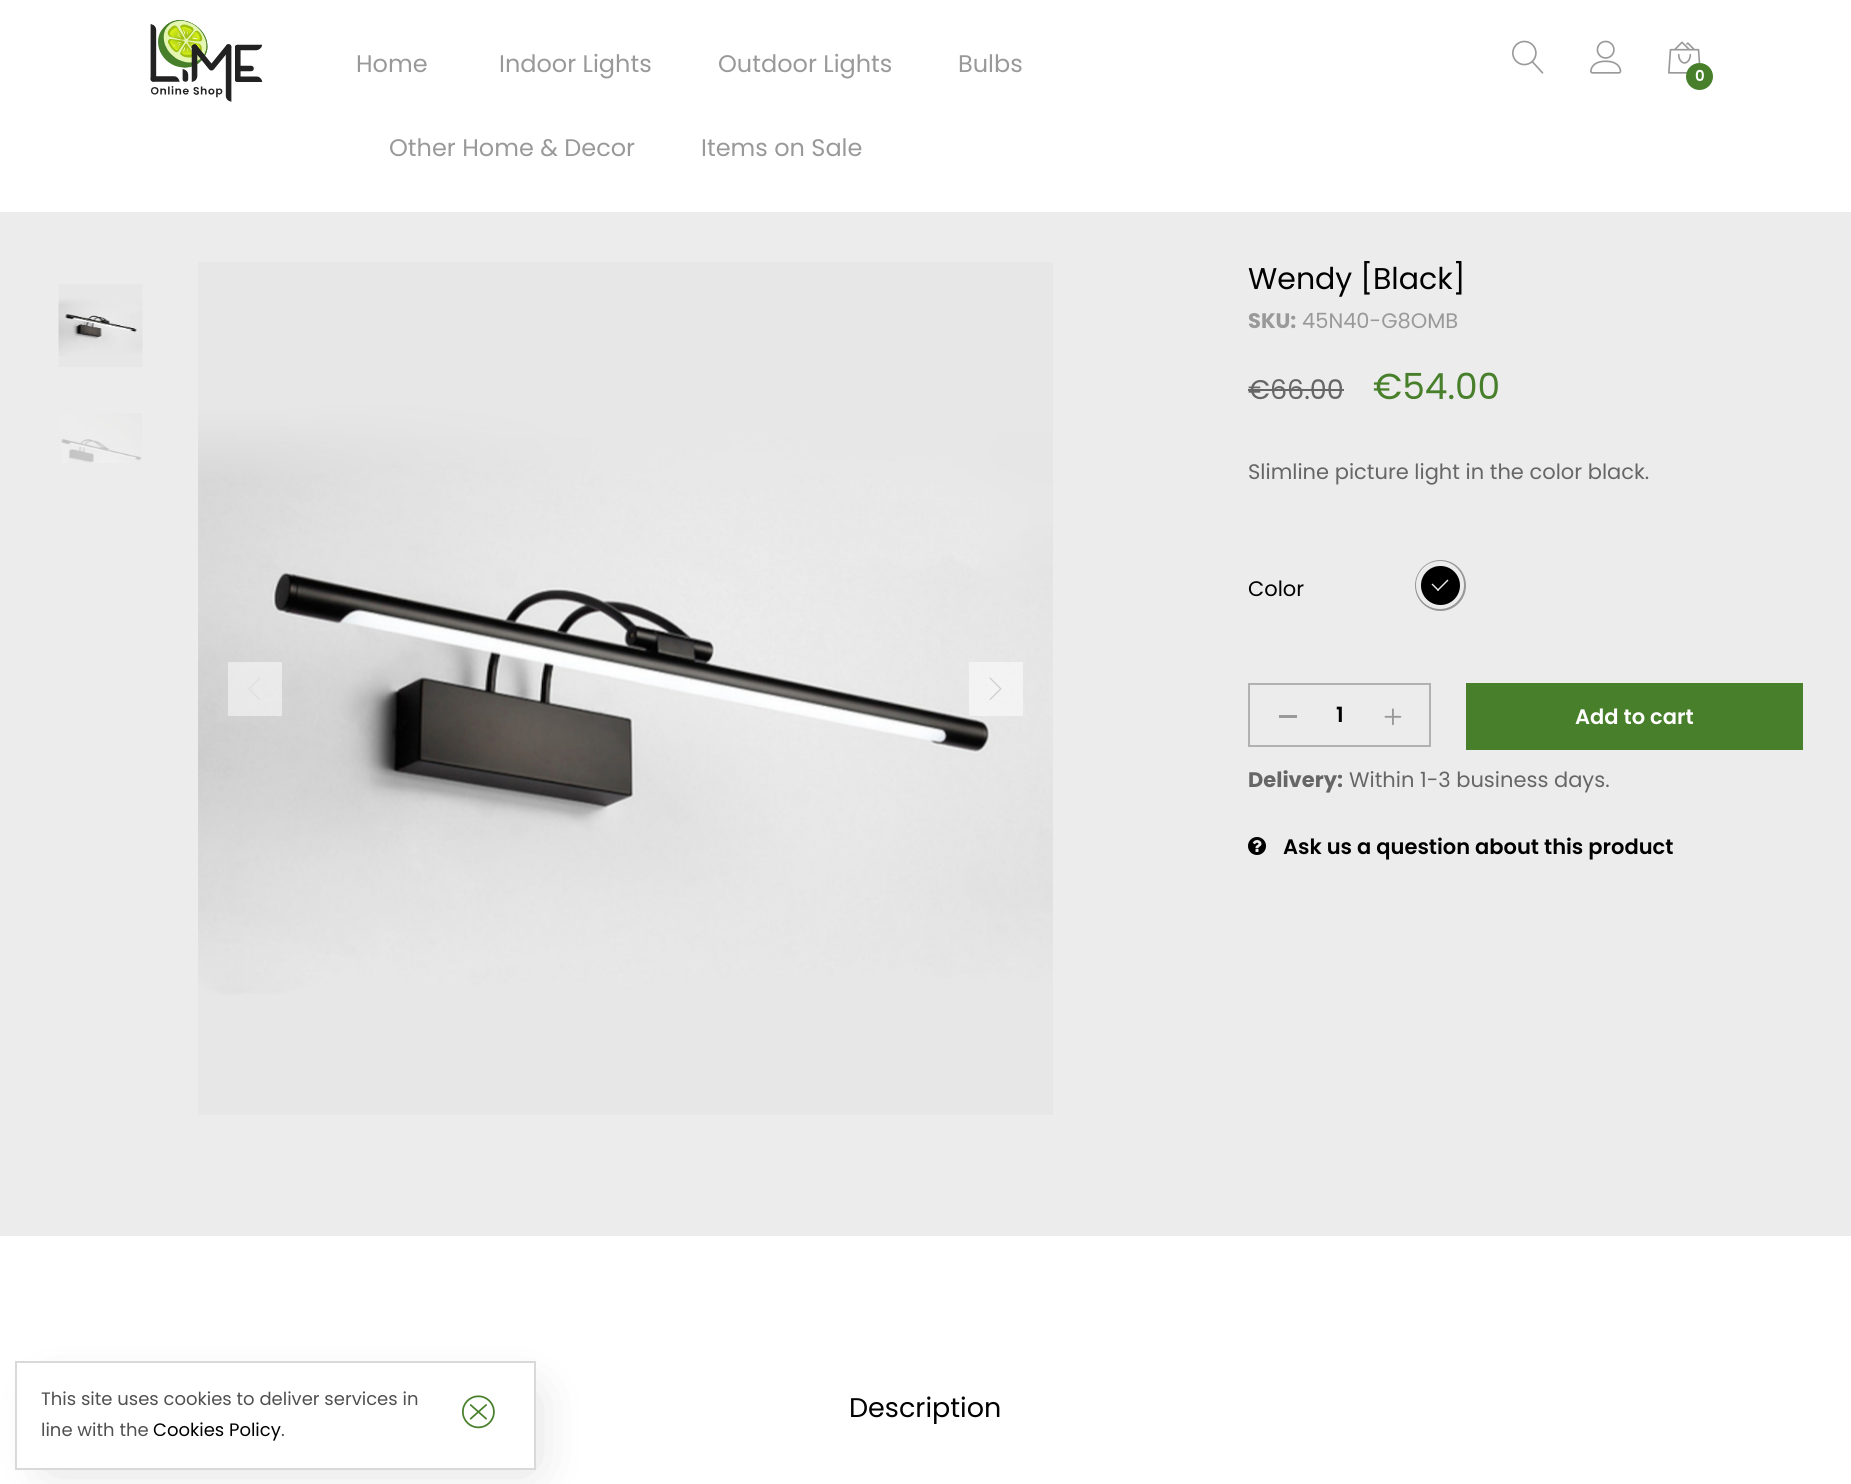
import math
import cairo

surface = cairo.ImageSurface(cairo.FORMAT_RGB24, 1851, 1484)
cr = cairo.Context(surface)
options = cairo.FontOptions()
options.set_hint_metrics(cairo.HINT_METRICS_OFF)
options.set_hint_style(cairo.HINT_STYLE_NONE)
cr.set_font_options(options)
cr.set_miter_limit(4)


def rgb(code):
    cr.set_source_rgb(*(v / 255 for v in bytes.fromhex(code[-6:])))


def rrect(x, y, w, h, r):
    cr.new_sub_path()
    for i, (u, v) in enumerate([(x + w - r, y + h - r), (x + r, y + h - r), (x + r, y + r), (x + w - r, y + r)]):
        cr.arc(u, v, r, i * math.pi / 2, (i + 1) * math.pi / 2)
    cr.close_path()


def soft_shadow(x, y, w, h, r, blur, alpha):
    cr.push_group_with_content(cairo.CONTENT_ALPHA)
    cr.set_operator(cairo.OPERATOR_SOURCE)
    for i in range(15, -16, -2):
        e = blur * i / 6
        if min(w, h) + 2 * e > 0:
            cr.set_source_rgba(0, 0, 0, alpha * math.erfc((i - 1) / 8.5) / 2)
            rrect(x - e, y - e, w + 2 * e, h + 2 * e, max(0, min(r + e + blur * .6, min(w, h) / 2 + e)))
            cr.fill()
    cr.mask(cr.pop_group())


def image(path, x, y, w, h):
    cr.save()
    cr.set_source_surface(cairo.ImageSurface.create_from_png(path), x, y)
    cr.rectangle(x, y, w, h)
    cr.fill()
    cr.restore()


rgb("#ececec")
cr.paint()
rgb("#ffffff")
cr.rectangle(0, 1236, 1851, 248)
cr.fill()
rgb("#000000")
soft_shadow(50, 1395, 481, 71, 0, 27, 0.15)
rgb("#ffffff")
cr.rectangle(16, 1362, 519, 107)
cr.fill_preserve()
rgb("#d9d9d9")
cr.stroke()
image("img/1.png", 462, 1395, 33, 34)
rgb("#ffffff")
cr.rectangle(0, 0, 1851, 212)
cr.fill()
image("img/2.png", 150, 20, 113, 82)
image("img/3.png", 1512, 40, 32, 34)
image("img/4.png", 1590, 40, 32, 34)
image("img/5.png", 1668, 41, 33, 33)
rgb("#477f2b")
cr.arc(1699.5, 76.5, 13.5, 0, 2 * math.pi)
cr.fill()
image("img/6.png", 58, 284, 85, 83)
image("img/7.png", 61, 413, 81, 50)
image("img/8.png", 198, 262, 855, 853)
cr.set_source_rgba(1, 1, 1, 0.5)
cr.rectangle(228, 662, 54, 54)
cr.fill()
image("img/9.png", 248, 677, 12, 23)
cr.rectangle(969, 662, 54, 54)
cr.fill()
image("img/10.png", 989, 677, 13, 23)
rgb("#666666")
cr.rectangle(1248, 389, 96, 2)
cr.fill()
cr.arc(1440.5, 585.5, 22.5, 0, 2 * math.pi)
rgb("#979797")
cr.set_line_width(6)
cr.stroke()
cr.arc(1440, 585, 21.5, 0, 2 * math.pi)
rgb("#ececec")
cr.set_line_width(5)
cr.stroke()
rgb("#000000")
cr.arc(1440.5, 585.5, 19.5, 0, 2 * math.pi)
cr.fill()
rgb("#ececec")
cr.new_path()
cr.move_to(1447.5, 579.5)
cr.line_to(1448.5, 580.5)
cr.line_to(1438, 591)
cr.line_to(1437, 590)
cr.close_path()
cr.fill()
cr.new_path()
cr.move_to(1432.5, 583.5)
cr.line_to(1439, 590)
cr.line_to(1438, 591)
cr.line_to(1431.5, 584.5)
cr.close_path()
cr.fill()
cr.rectangle(1249, 684, 181, 62)
rgb("#b1b1b1")
cr.set_line_width(2)
cr.stroke()
rgb("#999999")
cr.rectangle(1279, 715, 18, 3)
cr.fill()
image("img/11.png", 1384, 708, 18, 18)
rgb("#477f2b")
cr.rectangle(1466, 683, 337, 67)
cr.fill()
image("img/12.png", 1248, 837, 18, 18)
cr.select_font_face("Poppins")
cr.set_font_size(18)
rgb("#505050")
cr.move_to(41, 1405)
cr.show_text("This site uses cookies to deliver services in")
cr.move_to(41, 1436)
cr.show_text("line with the")
rgb("#000000")
cr.move_to(153, 1436)
cr.show_text("Cookies Policy")
rgb("#505050")
cr.move_to(281, 1436)
cr.show_text(".")
cr.set_font_size(24)
rgb("#999999")
for x, y, s in [
    (356, 72, "Home"),
    (499, 72, "Indoor Lights"),
    (718, 72, "Outdoor Lights"),
    (958, 72, "Bulbs"),
    (389, 156, "Other Home & Decor"),
    (701, 156, "Items on Sale"),
]:
    cr.move_to(x, y)
    cr.show_text(s)
cr.select_font_face("Poppins SemiBold")
cr.set_font_size(15)
rgb("#ffffff")
cr.move_to(1695, 81)
cr.show_text("0")
cr.select_font_face("Poppins")
cr.set_font_size(30)
rgb("#000000")
cr.move_to(1248, 289)
cr.show_text("Wendy [Black]")
cr.select_font_face("Poppins", cairo.FONT_SLANT_NORMAL, cairo.FONT_WEIGHT_BOLD)
cr.set_font_size(21)
rgb("#999999")
cr.move_to(1248, 328)
cr.show_text("SKU:")
cr.select_font_face("Poppins")
cr.move_to(1302, 328)
cr.show_text("45N40-G8OMB")
cr.set_font_size(27)
rgb("#666666")
cr.move_to(1248, 399)
cr.show_text("€66.00")
cr.set_font_size(36)
rgb("#477f2b")
cr.move_to(1373, 399)
cr.show_text("€54.00")
cr.set_font_size(21)
rgb("#666666")
cr.move_to(1248, 479)
cr.show_text("Slimline picture light in the color black.")
rgb("#000000")
cr.move_to(1248, 596)
cr.show_text("Color")
cr.select_font_face("Poppins SemiBold")
cr.move_to(1336, 722)
cr.show_text("1")
rgb("#ffffff")
cr.move_to(1575, 724)
cr.show_text("Add to cart")
cr.select_font_face("Poppins", cairo.FONT_SLANT_NORMAL, cairo.FONT_WEIGHT_BOLD)
rgb("#666666")
cr.move_to(1248, 787)
cr.show_text("Delivery:")
cr.select_font_face("Poppins")
cr.move_to(1349, 787)
cr.show_text("Within 1-3 business days.")
cr.select_font_face("Poppins SemiBold")
rgb("#000000")
cr.move_to(1283, 854)
cr.show_text("Ask us a question about this product")
cr.select_font_face("Poppins")
cr.set_font_size(27)
cr.move_to(849, 1417)
cr.show_text("Description")
surface.write_to_png("page.png")
